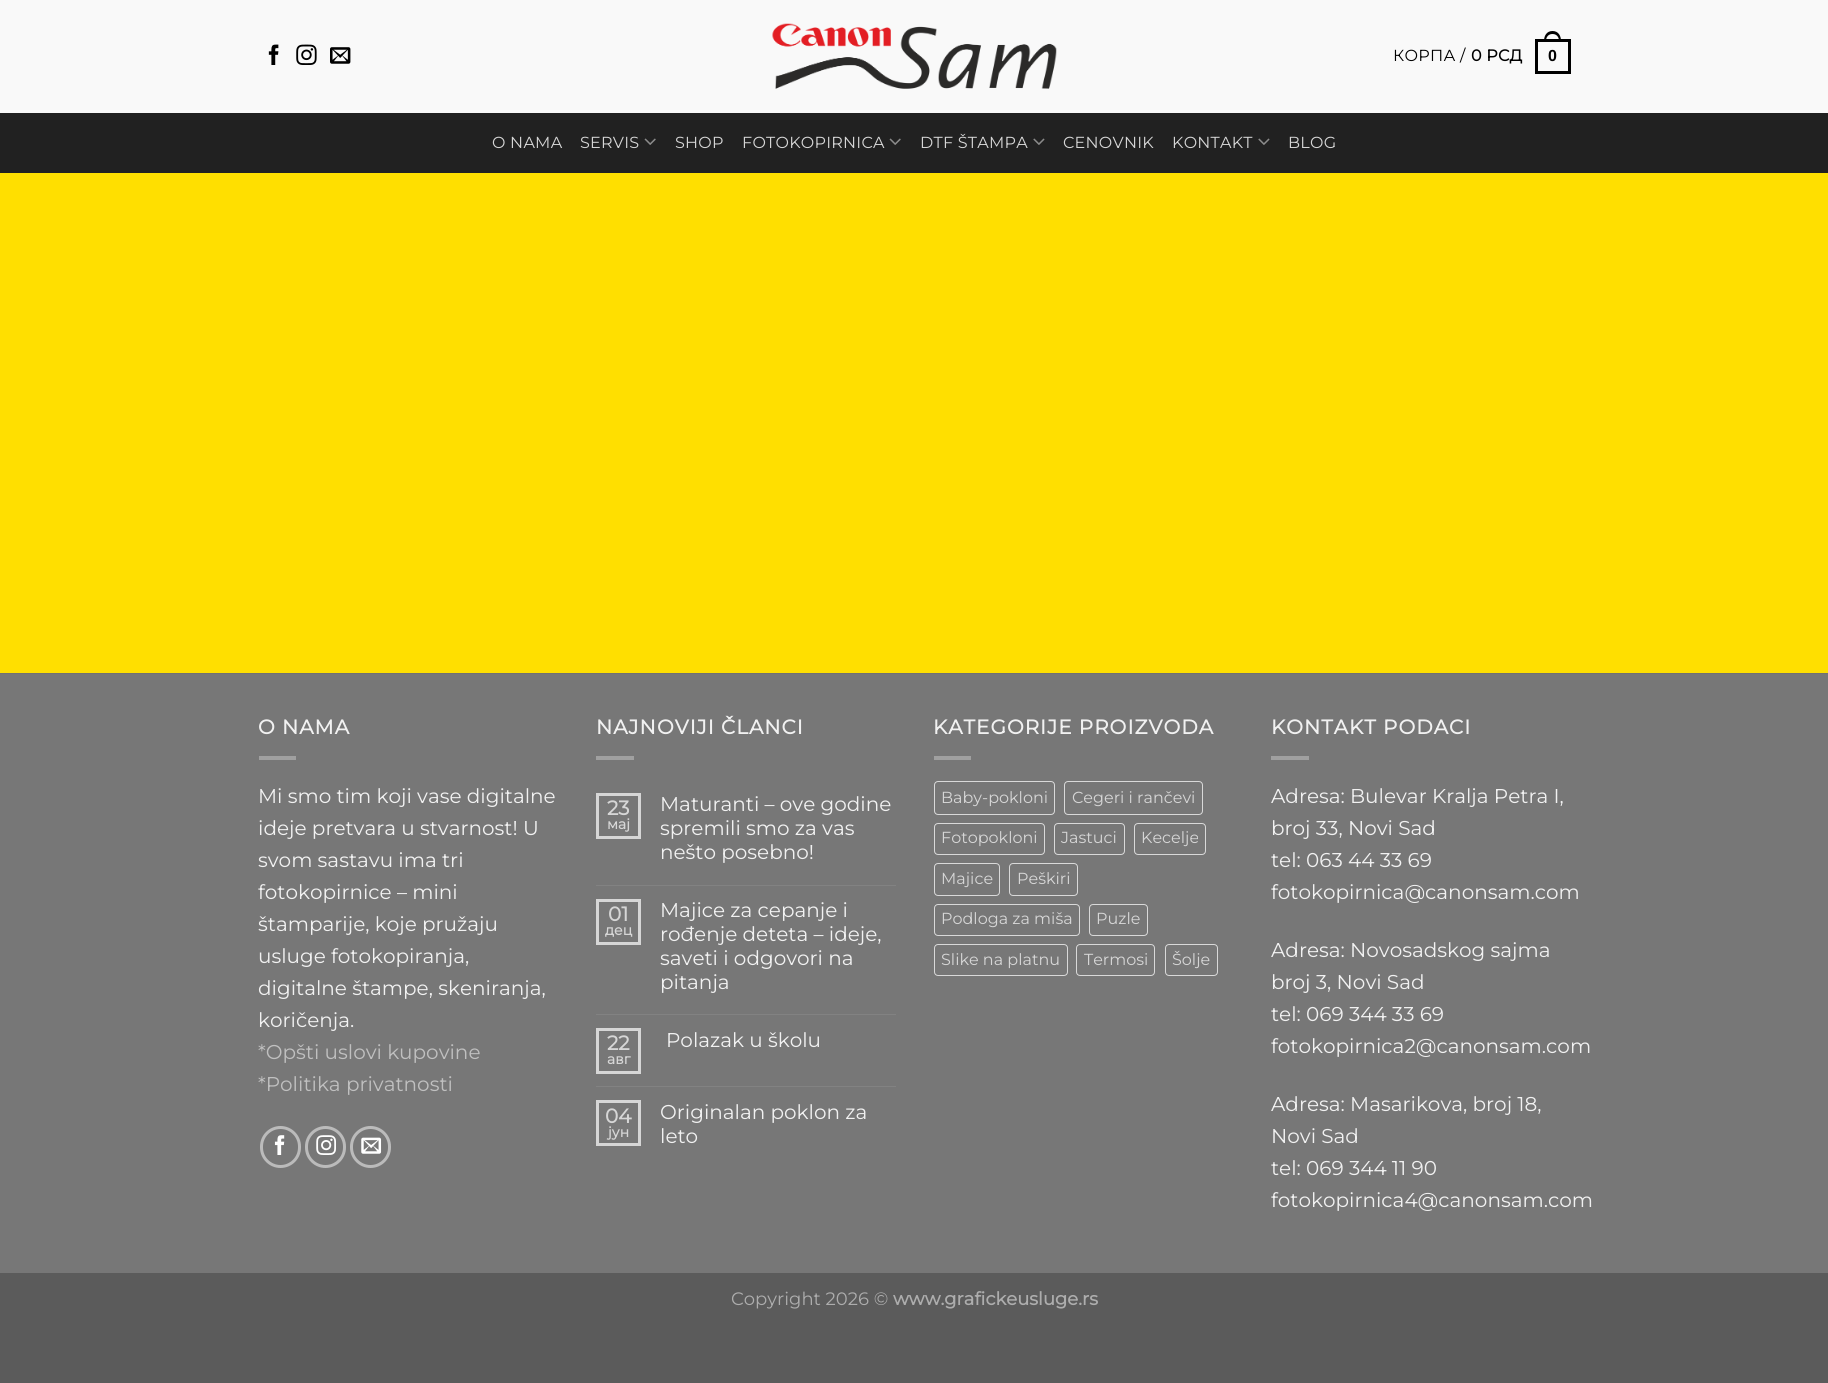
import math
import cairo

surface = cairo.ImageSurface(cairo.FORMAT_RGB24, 1828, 1383)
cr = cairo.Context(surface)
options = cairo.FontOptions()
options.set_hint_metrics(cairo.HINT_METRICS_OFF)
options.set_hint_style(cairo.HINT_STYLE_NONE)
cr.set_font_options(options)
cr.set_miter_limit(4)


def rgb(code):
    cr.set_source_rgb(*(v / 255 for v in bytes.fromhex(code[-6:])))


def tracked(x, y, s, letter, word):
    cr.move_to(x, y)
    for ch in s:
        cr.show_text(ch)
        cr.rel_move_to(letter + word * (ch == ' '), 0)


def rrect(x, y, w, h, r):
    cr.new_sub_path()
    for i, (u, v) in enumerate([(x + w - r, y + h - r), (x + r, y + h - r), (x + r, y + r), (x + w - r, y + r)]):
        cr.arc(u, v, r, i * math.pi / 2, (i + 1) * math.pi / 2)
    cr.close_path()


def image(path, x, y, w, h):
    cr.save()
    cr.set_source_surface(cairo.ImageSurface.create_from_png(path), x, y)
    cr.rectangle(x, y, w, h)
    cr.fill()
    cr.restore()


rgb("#5b5b5b")
cr.paint()
rgb("#f9f9f9")
cr.rectangle(0, 0, 1828, 113)
cr.fill()
image("img/1.png", 268, 44, 11, 21)
image("img/2.png", 296, 44, 21, 21)
image("img/3.png", 330, 47, 21, 17)
image("img/4.png", 772, 23, 285, 66)
cr.rectangle(1536.5, 40.5, 33, 32)
rgb("#000000")
cr.set_line_width(3)
cr.stroke()
cr.set_fill_rule(cairo.FILL_RULE_EVEN_ODD)
cr.new_path()
cr.move_to(1552.5, 31)
cr.curve_to(1558.5, 31, 1561, 36, 1561, 41)
cr.line_to(1544, 41)
cr.curve_to(1544, 36, 1546.5, 31, 1552.5, 31)
cr.close_path()
cr.move_to(1552.5, 34)
cr.curve_to(1557, 34, 1559, 37.5, 1559, 41)
cr.line_to(1546, 41)
cr.curve_to(1546, 37.5, 1548, 34, 1552.5, 34)
cr.close_path()
cr.fill()
rgb("#212121")
cr.rectangle(0, 113, 1828, 60)
cr.fill()
image("img/5.png", 644, 138, 12, 7)
image("img/5.png", 889, 138, 12, 7)
image("img/6.png", 1033, 138, 12, 7)
image("img/6.png", 1258, 138, 12, 7)
for x, y, w, h, color in [
    (0, 173, 1828, 500, "#ffdf00"),
    (0, 674, 1828, 599, "#777777"),
    (0, 673, 1828, 1, "#717171"),
    (259, 756, 37, 4, "#a0a0a0"),
]:
    rgb(color)
    cr.rectangle(x, y, w, h)
    cr.fill()
rrect(261.5, 1127.5, 38, 39, 19)
rgb("#bbbbbb")
cr.stroke()
image("img/7.png", 274, 1135, 11, 20)
rrect(306.5, 1127.5, 38, 39, 19)
cr.stroke()
image("img/8.png", 316, 1135, 20, 20)
rrect(351.5, 1127.5, 38, 39, 19)
cr.stroke()
image("img/9.png", 361, 1137, 21, 17)
rgb("#a0a0a0")
cr.rectangle(596, 756, 38, 4)
cr.fill()
cr.rectangle(597.5, 794.5, 42, 43)
rgb("#d6d6d6")
cr.stroke()
rgb("#828282")
cr.rectangle(596, 885, 300, 1)
cr.fill()
cr.rectangle(597.5, 900.5, 42, 43)
rgb("#d6d6d6")
cr.stroke()
rgb("#828282")
cr.rectangle(596, 1014, 300, 1)
cr.fill()
cr.rectangle(597.5, 1029.5, 42, 43)
rgb("#d6d6d6")
cr.stroke()
rgb("#828282")
cr.rectangle(596, 1086, 300, 1)
cr.fill()
cr.rectangle(597.5, 1101.5, 42, 43)
rgb("#d6d6d6")
cr.stroke()
rgb("#a0a0a0")
cr.rectangle(934, 756, 37, 4)
cr.fill()
rrect(934.5, 781.5, 120, 33, 3.5)
rgb("#d9d9d9")
cr.set_line_width(1)
cr.stroke()
rrect(1064.5, 781.5, 138, 33, 3.5)
cr.stroke()
rrect(934.5, 823.5, 110, 31, 3.5)
cr.stroke()
rrect(1054.5, 823.5, 70, 31, 3.5)
cr.stroke()
rrect(1134.5, 823.5, 71, 31, 3.5)
cr.stroke()
rrect(934.5, 863.5, 65, 32, 3.5)
cr.stroke()
rrect(1009.5, 863.5, 68, 32, 3.5)
cr.stroke()
rrect(934.5, 904.5, 145, 31, 3.5)
cr.stroke()
rrect(1089.5, 904.5, 58, 31, 3.5)
cr.stroke()
rrect(934.5, 944.5, 133, 31, 3.5)
cr.stroke()
rrect(1076.5, 944.5, 78, 31, 3.5)
cr.stroke()
rrect(1165.5, 944.5, 52, 31, 3.5)
cr.stroke()
rgb("#a0a0a0")
cr.rectangle(1271, 756, 38, 4)
cr.fill()
cr.select_font_face("Montserrat Thin")
cr.set_font_size(16)
rgb("#000000")
tracked(1393, 61, "КОРПА /", 0.25, 0)
cr.select_font_face("Montserrat", cairo.FONT_SLANT_NORMAL, cairo.FONT_WEIGHT_BOLD)
tracked(1471, 61, "0 РСД", 0.25, 0)
cr.select_font_face("Liberation Sans", cairo.FONT_SLANT_NORMAL, cairo.FONT_WEIGHT_BOLD)
tracked(1548, 61, "0", 0.25, 0)
cr.select_font_face("Montserrat Thin")
rgb("#d6d6d6")
for x, y, s in [
    (492, 148, "O NAMA"),
    (580, 148, "SERVIS"),
    (675, 148, "SHOP"),
    (742, 148, "FOTOKOPIRNICA"),
    (920, 148, "DTF ŠTAMPA"),
    (1063, 148, "CENOVNIK"),
    (1172, 148, "KONTAKT"),
    (1288, 148, "BLOG"),
]:
    tracked(x, y, s, 0.25, 0)
cr.select_font_face("Montserrat", cairo.FONT_SLANT_NORMAL, cairo.FONT_WEIGHT_BOLD)
cr.set_font_size(20)
rgb("#f1f1f1")
tracked(258, 734, "O NAMA", 1, 0)
cr.select_font_face("Montserrat Thin")
for x, y, s in [
    (258, 803, "Mi smo tim koji vase digitalne"),
    (258, 835, "ideje pretvara u stvarnost! U"),
    (258, 867, "svom sastavu ima tri"),
    (258, 899, "fotokopirnice – mini"),
    (258, 931, "štamparije, koje pružaju"),
    (258, 963, "usluge fotokopiranja,"),
    (258, 995, "digitalne štampe, skeniranja,"),
    (258, 1027, "koričenja."),
]:
    cr.move_to(x, y)
    cr.show_text(s)
rgb("#c0c0c0")
cr.move_to(258, 1059)
cr.show_text("*Opšti uslovi kupovine")
cr.move_to(258, 1091)
cr.show_text("*Politika privatnosti")
cr.select_font_face("Montserrat", cairo.FONT_SLANT_NORMAL, cairo.FONT_WEIGHT_BOLD)
rgb("#f1f1f1")
tracked(596, 734, "NAJNOVIJI ČLANCI", 1, 0)
rgb("#d6d6d6")
cr.move_to(607, 815)
cr.show_text("23")
cr.set_font_size(14)
cr.move_to(607, 829)
cr.show_text("мај")
cr.select_font_face("Montserrat Thin")
cr.set_font_size(20)
rgb("#f1f1f1")
for x, y, s in [
    (660, 811, "Maturanti – ove godine"),
    (660, 835, "spremili smo za vas"),
    (660, 859, "nešto posebno!"),
]:
    cr.move_to(x, y)
    cr.show_text(s)
cr.select_font_face("Montserrat", cairo.FONT_SLANT_NORMAL, cairo.FONT_WEIGHT_BOLD)
rgb("#d6d6d6")
cr.move_to(608, 921)
cr.show_text("01")
cr.set_font_size(14)
cr.move_to(605, 935)
cr.show_text("дец")
cr.select_font_face("Montserrat Thin")
cr.set_font_size(20)
rgb("#f1f1f1")
for x, y, s in [
    (660, 917, "Majice za cepanje i"),
    (660, 941, "rođenje deteta – ideje,"),
    (660, 965, "saveti i odgovori na"),
    (660, 989, "pitanja"),
]:
    cr.move_to(x, y)
    cr.show_text(s)
cr.select_font_face("Montserrat", cairo.FONT_SLANT_NORMAL, cairo.FONT_WEIGHT_BOLD)
rgb("#d6d6d6")
cr.move_to(607, 1050)
cr.show_text("22")
cr.set_font_size(14)
cr.move_to(607, 1064)
cr.show_text("авг")
cr.select_font_face("Montserrat Thin")
cr.set_font_size(20)
rgb("#f1f1f1")
cr.move_to(666, 1047)
cr.show_text("Polazak u školu")
cr.select_font_face("Montserrat", cairo.FONT_SLANT_NORMAL, cairo.FONT_WEIGHT_BOLD)
rgb("#d6d6d6")
cr.move_to(605, 1123)
cr.show_text("04")
cr.set_font_size(14)
cr.move_to(608, 1137)
cr.show_text("јун")
cr.select_font_face("Montserrat Thin")
cr.set_font_size(20)
rgb("#f1f1f1")
cr.move_to(660, 1119)
cr.show_text("Originalan poklon za")
cr.move_to(660, 1143)
cr.show_text("leto")
cr.select_font_face("Montserrat", cairo.FONT_SLANT_NORMAL, cairo.FONT_WEIGHT_BOLD)
tracked(933, 734, "KATEGORIJE PROIZVODA", 1, 0)
cr.select_font_face("Montserrat Thin")
cr.set_font_size(16)
rgb("#d6d6d6")
for x, y, s in [
    (941, 803, "Baby-pokloni"),
    (1072, 803, "Cegeri i rančevi"),
    (941, 843, "Fotopokloni"),
    (1061, 843, "Jastuci"),
    (1141, 843, "Kecelje"),
    (941, 884, "Majice"),
    (1017, 884, "Peškiri"),
    (941, 924, "Podloga za miša"),
    (1096, 924, "Puzle"),
    (941, 965, "Slike na platnu"),
    (1084, 965, "Termosi"),
    (1172, 965, "Šolje"),
]:
    cr.move_to(x, y)
    cr.show_text(s)
cr.select_font_face("Montserrat", cairo.FONT_SLANT_NORMAL, cairo.FONT_WEIGHT_BOLD)
cr.set_font_size(20)
rgb("#f1f1f1")
tracked(1271, 734, "KONTAKT PODACI", 1, 0)
cr.select_font_face("Montserrat Thin")
for x, y, s in [
    (1271, 803, "Adresa: Bulevar Kralja Petra I,"),
    (1271, 835, "broj 33, Novi Sad"),
    (1271, 867, "tel: 063 44 33 69"),
    (1271, 899, "fotokopirnica@canonsam.com"),
    (1271, 957, "Adresa: Novosadskog sajma"),
    (1271, 989, "broj 3, Novi Sad"),
    (1271, 1021, "tel: 069 344 33 69"),
    (1271, 1053, "fotokopirnica2@canonsam.com"),
    (1271, 1111, "Adresa: Masarikova, broj 18,"),
    (1271, 1143, "Novi Sad"),
    (1271, 1175, "tel: 069 344 11 90"),
    (1271, 1207, "fotokopirnica4@canonsam.com"),
]:
    cr.move_to(x, y)
    cr.show_text(s)
cr.set_font_size(18)
rgb("#adadad")
cr.move_to(731, 1305)
cr.show_text("Copyright 2026 ©")
cr.select_font_face("Montserrat", cairo.FONT_SLANT_NORMAL, cairo.FONT_WEIGHT_BOLD)
cr.move_to(893, 1305)
cr.show_text("www.grafickeusluge.rs")
surface.write_to_png("page.png")
